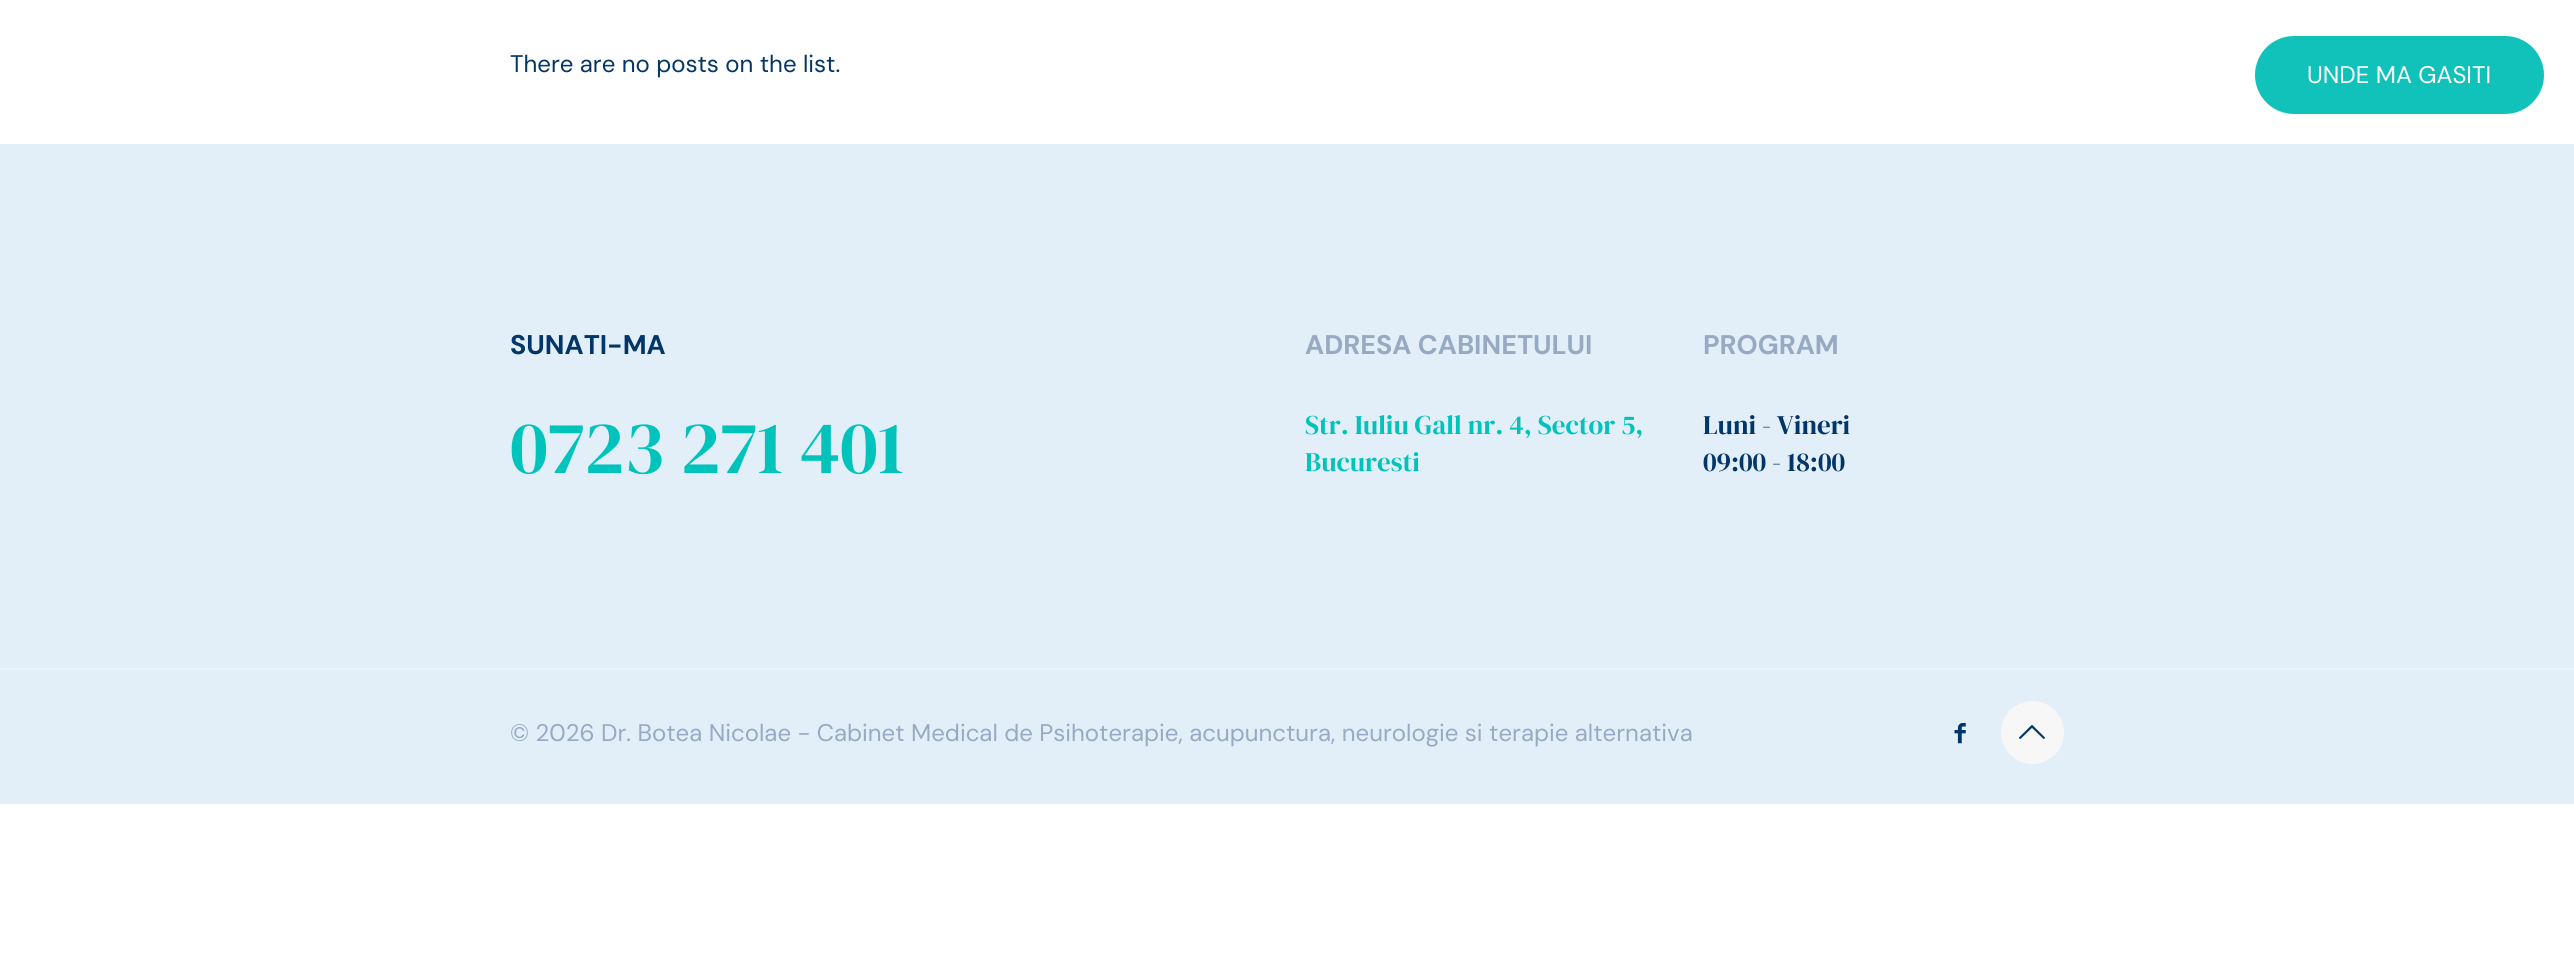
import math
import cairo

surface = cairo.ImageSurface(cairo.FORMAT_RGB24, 2574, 965)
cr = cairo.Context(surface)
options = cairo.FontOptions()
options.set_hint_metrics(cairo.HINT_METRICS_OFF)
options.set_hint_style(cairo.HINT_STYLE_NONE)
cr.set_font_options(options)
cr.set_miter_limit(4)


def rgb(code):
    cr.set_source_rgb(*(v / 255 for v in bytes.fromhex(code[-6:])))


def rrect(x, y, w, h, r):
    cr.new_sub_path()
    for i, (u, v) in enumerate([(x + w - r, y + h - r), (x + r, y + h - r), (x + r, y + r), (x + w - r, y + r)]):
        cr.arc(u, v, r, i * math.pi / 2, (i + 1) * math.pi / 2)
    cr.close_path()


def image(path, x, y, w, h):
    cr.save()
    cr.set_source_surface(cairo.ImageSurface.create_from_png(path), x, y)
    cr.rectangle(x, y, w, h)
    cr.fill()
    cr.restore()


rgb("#ffffff")
cr.paint()
rgb("#10c2ba")
rrect(2255, 36, 289, 78, 39)
cr.fill()
rgb("#e2eff9")
cr.rectangle(0, 144, 2574, 660)
cr.fill()
rgb("#e8f2fa")
cr.rectangle(0, 668, 2574, 2)
cr.fill()
image("img/1.png", 1954, 723, 12, 21)
rgb("#f7f7f7")
cr.arc(2032.5, 732.5, 31.5, 0, 2 * math.pi)
cr.fill()
image("img/2.png", 2019, 725, 26, 14)
cr.select_font_face("DM Sans")
cr.set_font_size(24)
rgb("#023668")
cr.move_to(510, 72)
cr.show_text("There are no posts on the list.")
rgb("#ffffff")
cr.move_to(2307, 83)
cr.show_text("UNDE MA GASITI")
cr.select_font_face("DM Sans", cairo.FONT_SLANT_NORMAL, cairo.FONT_WEIGHT_BOLD)
cr.set_font_size(27)
rgb("#023668")
cr.move_to(510, 354)
cr.show_text("SUNATI-MA")
cr.select_font_face("DM Serif Display")
cr.set_font_size(75)
rgb("#00c3bb")
cr.move_to(510, 473)
cr.show_text("0723 271 401")
cr.select_font_face("DM Sans", cairo.FONT_SLANT_NORMAL, cairo.FONT_WEIGHT_BOLD)
cr.set_font_size(27)
rgb("#98aac3")
cr.move_to(1305, 354)
cr.show_text("ADRESA CABINETULUI")
cr.select_font_face("DM Serif Display")
rgb("#00c3bb")
cr.move_to(1305, 434)
cr.show_text("Str. Iuliu Gall nr. 4, Sector 5,")
cr.move_to(1305, 471)
cr.show_text("Bucuresti")
cr.select_font_face("DM Sans", cairo.FONT_SLANT_NORMAL, cairo.FONT_WEIGHT_BOLD)
rgb("#98aac3")
cr.move_to(1703, 354)
cr.show_text("PROGRAM")
cr.select_font_face("DM Serif Display")
rgb("#023668")
cr.move_to(1703, 434)
cr.show_text("Luni - Vineri")
cr.move_to(1703, 471)
cr.show_text("09:00 - 18:00")
cr.select_font_face("DM Sans")
cr.set_font_size(24)
rgb("#98aac3")
cr.move_to(510, 741)
cr.show_text("© 2026 Dr. Botea Nicolae - Cabinet Medical de Psihoterapie, acupunctura, neurologie si terapie alternativa")
surface.write_to_png("page.png")
